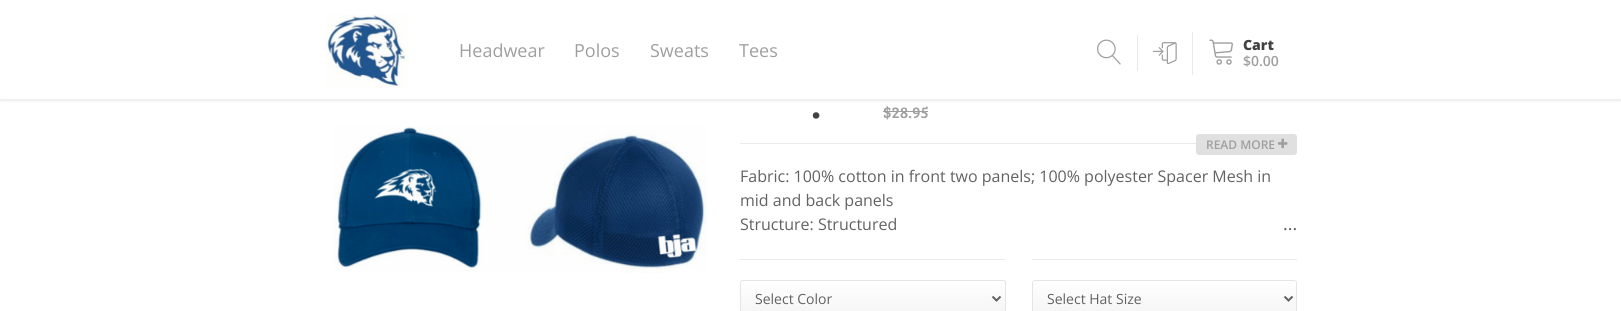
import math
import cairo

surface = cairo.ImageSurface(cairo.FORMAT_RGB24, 1621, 311)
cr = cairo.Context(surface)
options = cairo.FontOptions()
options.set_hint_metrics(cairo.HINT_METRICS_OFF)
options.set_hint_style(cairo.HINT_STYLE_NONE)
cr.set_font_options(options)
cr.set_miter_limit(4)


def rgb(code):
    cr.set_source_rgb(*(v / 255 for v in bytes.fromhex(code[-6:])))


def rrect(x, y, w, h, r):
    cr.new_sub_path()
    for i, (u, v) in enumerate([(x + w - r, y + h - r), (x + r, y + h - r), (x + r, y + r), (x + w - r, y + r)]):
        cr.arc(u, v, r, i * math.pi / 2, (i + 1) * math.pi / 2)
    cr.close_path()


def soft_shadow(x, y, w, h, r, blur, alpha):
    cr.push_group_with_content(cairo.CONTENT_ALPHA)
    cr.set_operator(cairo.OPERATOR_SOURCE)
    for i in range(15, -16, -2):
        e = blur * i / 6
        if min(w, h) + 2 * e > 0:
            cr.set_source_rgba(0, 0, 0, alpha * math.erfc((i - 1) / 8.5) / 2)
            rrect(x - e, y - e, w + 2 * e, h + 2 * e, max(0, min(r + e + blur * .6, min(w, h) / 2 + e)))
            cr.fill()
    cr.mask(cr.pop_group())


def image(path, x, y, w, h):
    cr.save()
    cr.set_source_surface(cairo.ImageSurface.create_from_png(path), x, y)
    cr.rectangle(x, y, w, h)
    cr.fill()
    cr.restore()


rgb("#ffffff")
cr.paint()
rgb("#000000")
soft_shadow(0, 1, 1621, 100, 0, 1, 0.08)
rgb("#ffffff")
cr.rectangle(0, 0, 1621, 99)
cr.fill()
rgb("#f0f0f0")
cr.rectangle(0, 99, 1621, 1)
cr.fill()
image("img/1.png", 325, 14, 84, 74)
image("img/2.png", 1097, 39, 24, 26)
rgb("#e9e9e9")
cr.rectangle(1137, 35, 1, 36)
cr.fill()
image("img/3.png", 1153, 42, 24, 23)
cr.rectangle(1192, 32, 1, 43)
cr.fill()
image("img/4.png", 1209, 39, 24, 26)
image("img/5.png", 333, 126, 374, 147)
rgb("#9f9f9f")
cr.rectangle(883, 111, 45, 1)
cr.fill()
rgb("#eaeaea")
cr.rectangle(740, 143, 456, 1)
cr.fill()
rgb("#e0e0e0")
rrect(1196, 134, 101, 21, 3)
cr.fill()
image("img/6.png", 1278, 138, 10, 11)
rgb("#eaeaea")
cr.rectangle(740, 259, 266, 1)
cr.fill()
cr.save()
rrect(740, 280, 266, 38, 3)
cr.clip()
gradient = cairo.LinearGradient(873, 281, 873, 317)
gradient.add_color_stop_rgba(0, 1, 1, 1, 1)
gradient.add_color_stop_rgba(1, 0.957, 0.957, 0.957, 1)
cr.set_source(gradient)
cr.rectangle(740, 281, 266, 30)
cr.fill()
cr.restore()
rrect(740.5, 280.5, 265, 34, 2.5)
rgb("#e5e5e5")
cr.set_line_width(1)
cr.stroke()
cr.new_path()
cr.move_to(992.5, 296.5)
cr.line_to(996.5, 300.5)
cr.line_to(1000.5, 296.5)
rgb("#636262")
cr.set_line_width(2)
cr.stroke()
rgb("#eaeaea")
cr.rectangle(1032, 259, 265, 1)
cr.fill()
cr.save()
rrect(1032, 280, 265, 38, 3)
cr.clip()
gradient = cairo.LinearGradient(1165, 281, 1165, 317)
gradient.add_color_stop_rgba(0, 1, 1, 1, 1)
gradient.add_color_stop_rgba(1, 0.957, 0.957, 0.957, 1)
cr.set_source(gradient)
cr.rectangle(1032, 281, 265, 30)
cr.fill()
cr.restore()
rrect(1032.5, 280.5, 264, 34, 2.5)
rgb("#e5e5e5")
cr.set_line_width(1)
cr.stroke()
cr.new_path()
cr.move_to(1284.5, 296.5)
cr.line_to(1288.5, 300.5)
cr.line_to(1292.5, 296.5)
rgb("#636262")
cr.set_line_width(2)
cr.stroke()
cr.select_font_face("Open Sans")
cr.set_font_size(18)
rgb("#9f9f9f")
for x, y, s in [
    (459, 57, "Headwear"),
    (574, 57, "Polos"),
    (650, 57, "Sweats"),
    (739, 57, "Tees"),
]:
    cr.move_to(x, y)
    cr.show_text(s)
cr.select_font_face("Open Sans ExtraBold")
cr.set_font_size(14)
rgb("#424242")
cr.move_to(1243, 50)
cr.show_text("Cart")
cr.select_font_face("Open Sans SemiBold")
rgb("#9f9f9f")
cr.move_to(1243, 66)
cr.show_text("$0.00")
cr.select_font_face("Bree Serif")
cr.set_font_size(45)
rgb("#424242")
cr.move_to(811, 118)
cr.show_text(".")
cr.set_font_size(16)
rgb("#9f9f9f")
cr.move_to(883, 118)
cr.show_text("$28.95")
cr.select_font_face("Open Sans SemiBold")
cr.set_font_size(12)
cr.move_to(1206, 149)
cr.show_text("READ MORE")
cr.select_font_face("Open Sans")
cr.set_font_size(16)
rgb("#636262")
for x, y, s in [
    (740, 182, "Fabric: 100% cotton in front two panels; 100% polyester Spacer Mesh in"),
    (740, 206, "mid and back panels"),
    (740, 230, "Structure: Structured"),
]:
    cr.move_to(x, y)
    cr.show_text(s)
cr.set_font_size(18)
cr.move_to(1283, 230)
cr.show_text("...")
cr.set_font_size(14)
cr.move_to(755, 304)
cr.show_text("Select Color")
cr.move_to(1047, 304)
cr.show_text("Select Hat Size")
surface.write_to_png("page.png")
